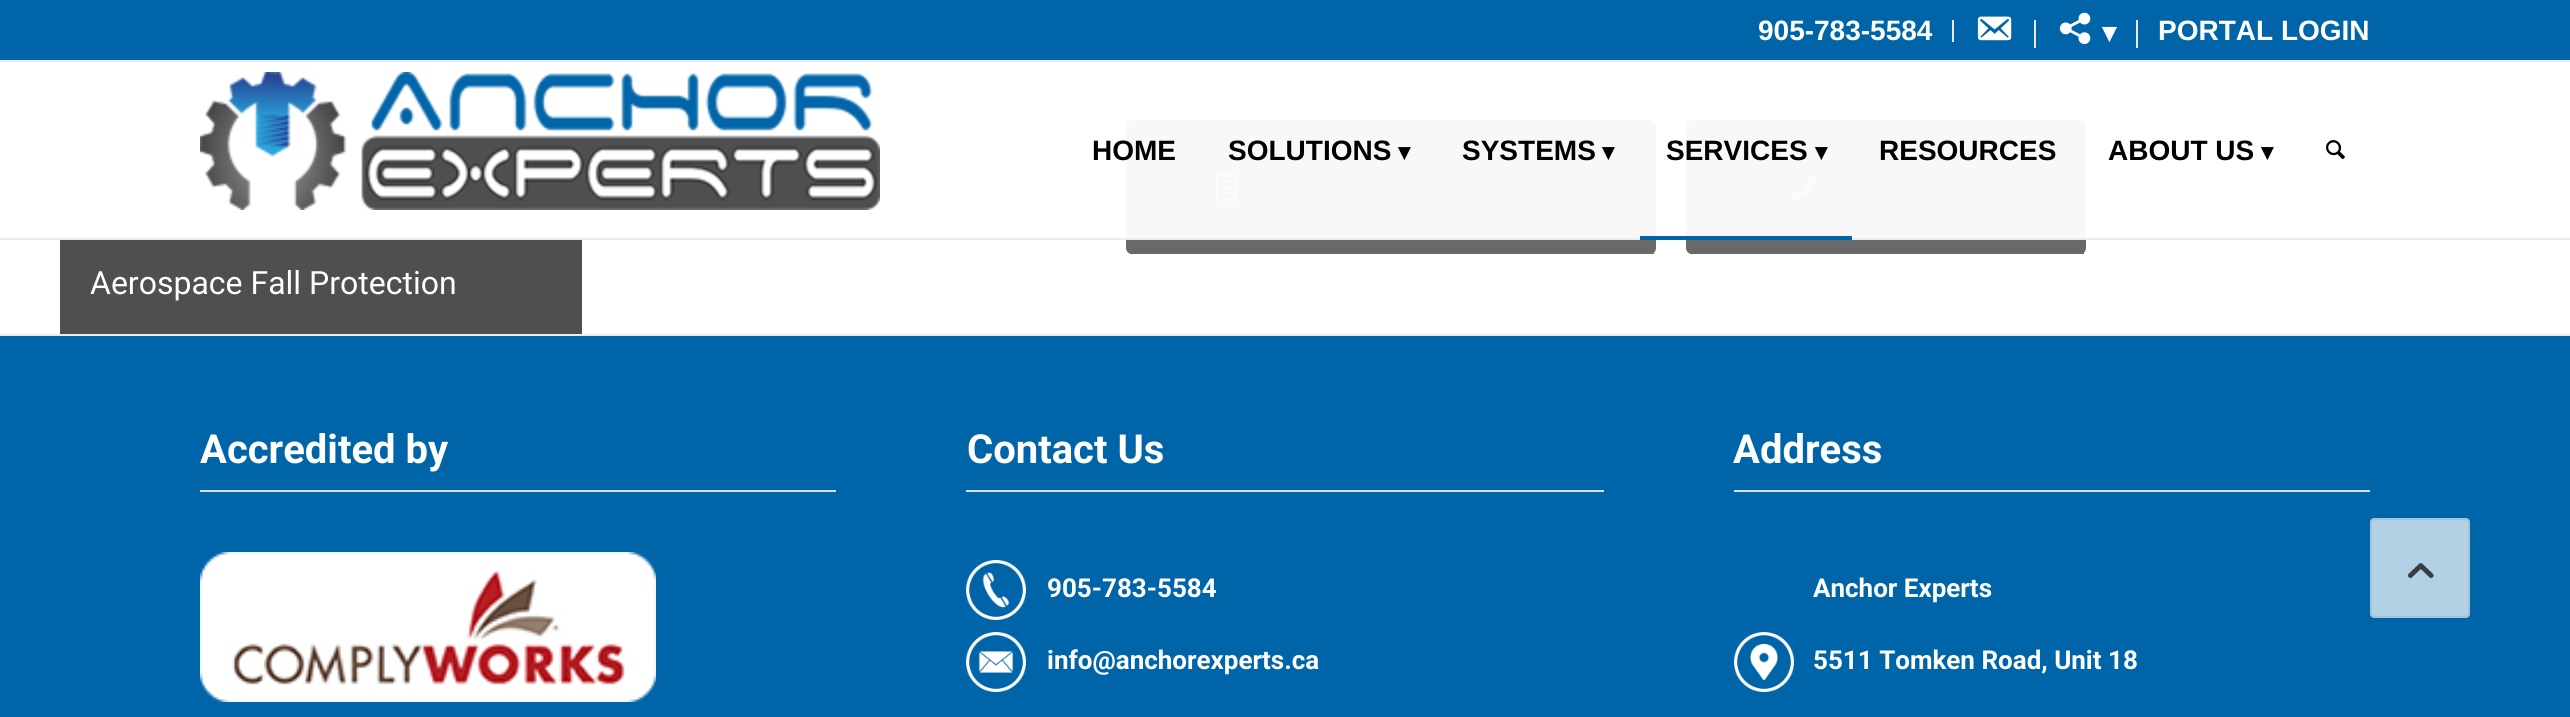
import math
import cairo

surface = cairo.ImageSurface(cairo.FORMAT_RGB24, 2570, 717)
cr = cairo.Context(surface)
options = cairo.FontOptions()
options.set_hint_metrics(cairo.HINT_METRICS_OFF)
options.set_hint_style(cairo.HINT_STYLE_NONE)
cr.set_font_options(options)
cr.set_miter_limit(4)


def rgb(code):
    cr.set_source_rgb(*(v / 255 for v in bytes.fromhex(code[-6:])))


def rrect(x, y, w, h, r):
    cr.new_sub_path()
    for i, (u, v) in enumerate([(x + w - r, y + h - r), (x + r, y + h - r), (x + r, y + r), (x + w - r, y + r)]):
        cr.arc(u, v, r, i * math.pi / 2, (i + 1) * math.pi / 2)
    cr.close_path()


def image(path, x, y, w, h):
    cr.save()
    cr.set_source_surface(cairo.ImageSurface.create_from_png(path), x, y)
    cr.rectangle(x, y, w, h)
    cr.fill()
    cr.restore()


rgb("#ffffff")
cr.paint()
for x, y, w, h, color in [
    (0, 0, 2570, 60, "#0065a8"),
    (0, 60, 2570, 2, "#ebebeb"),
    (1952, 20, 2, 22, "#ebebeb"),
    (2034, 20, 2, 28, "#ebebeb"),
]:
    rgb(color)
    cr.rectangle(x, y, w, h)
    cr.fill()
image("img/1.png", 1977, 16, 35, 25)
cr.rectangle(2136, 20, 2, 28)
cr.fill()
image("img/2.png", 2059, 12, 32, 33)
rgb("#696969")
rrect(1126, 120, 530, 134, 6)
cr.fill()
image("img/5.png", 1216, 174, 21, 27)
rrect(1686, 120, 400, 134, 6)
cr.fill()
image("img/6.png", 1792, 175, 24, 25)
cr.set_source_rgba(1, 1, 1, 0.95)
cr.rectangle(1126, 120, 960, 118)
cr.fill()
rgb("#ebebeb")
cr.rectangle(0, 238, 2570, 2)
cr.fill()
image("img/3.png", 200, 72, 680, 138)
rgb("#0065a8")
cr.rectangle(1640, 236, 212, 4)
cr.fill()
image("img/4.png", 2326, 140, 19, 20)
for x, y, w, h, color in [
    (1130, 252, 524, 2, "#696969"),
    (1690, 252, 394, 2, "#696969"),
    (60, 240, 522, 94, "#4e4f51"),
    (0, 336, 2570, 381, "#0065a8"),
    (0, 334, 2570, 2, "#ebebeb"),
    (200, 490, 636, 2, "#dddddd"),
]:
    rgb(color)
    cr.rectangle(x, y, w, h)
    cr.fill()
image("img/7.png", 200, 552, 456, 150)
cr.rectangle(966, 490, 638, 2)
cr.fill()
image("img/8.png", 966, 560, 60, 60)
image("img/9.png", 966, 632, 60, 60)
cr.rectangle(1734, 490, 636, 2)
cr.fill()
image("img/10.png", 1734, 632, 60, 60)
rgb("#b3d1e5")
rrect(2371, 519, 98, 98, 3)
cr.fill_preserve()
rgb("#a5c3d7")
cr.stroke()
image("img/11.png", 2408, 563, 26, 16)
cr.select_font_face("Liberation Sans", cairo.FONT_SLANT_NORMAL, cairo.FONT_WEIGHT_BOLD)
cr.set_font_size(28)
rgb("#ffffff")
cr.move_to(1758, 40)
cr.show_text("905-783-5584")
cr.select_font_face("DejaVu Sans", cairo.FONT_SLANT_NORMAL, cairo.FONT_WEIGHT_BOLD)
cr.move_to(2102, 42)
cr.show_text("▾")
cr.select_font_face("Liberation Sans", cairo.FONT_SLANT_NORMAL, cairo.FONT_WEIGHT_BOLD)
cr.move_to(2158, 40)
cr.show_text("PORTAL LOGIN")
rgb("#000000")
cr.move_to(1092, 160)
cr.show_text("HOME")
cr.move_to(1228, 160)
cr.show_text("SOLUTIONS")
cr.select_font_face("DejaVu Sans", cairo.FONT_SLANT_NORMAL, cairo.FONT_WEIGHT_BOLD)
cr.set_font_size(24)
cr.move_to(1398, 160)
cr.show_text("▾")
cr.select_font_face("Liberation Sans", cairo.FONT_SLANT_NORMAL, cairo.FONT_WEIGHT_BOLD)
cr.set_font_size(28)
cr.move_to(1462, 160)
cr.show_text("SYSTEMS")
cr.select_font_face("DejaVu Sans", cairo.FONT_SLANT_NORMAL, cairo.FONT_WEIGHT_BOLD)
cr.set_font_size(24)
cr.move_to(1602, 160)
cr.show_text("▾")
cr.select_font_face("Liberation Sans", cairo.FONT_SLANT_NORMAL, cairo.FONT_WEIGHT_BOLD)
cr.set_font_size(28)
cr.move_to(1666, 160)
cr.show_text("SERVICES")
cr.select_font_face("DejaVu Sans", cairo.FONT_SLANT_NORMAL, cairo.FONT_WEIGHT_BOLD)
cr.set_font_size(24)
cr.move_to(1815, 160)
cr.show_text("▾")
cr.select_font_face("Liberation Sans", cairo.FONT_SLANT_NORMAL, cairo.FONT_WEIGHT_BOLD)
cr.set_font_size(28)
cr.move_to(1879, 160)
cr.show_text("RESOURCES")
cr.move_to(2108, 160)
cr.show_text("ABOUT US")
cr.select_font_face("DejaVu Sans", cairo.FONT_SLANT_NORMAL, cairo.FONT_WEIGHT_BOLD)
cr.set_font_size(24)
cr.move_to(2261, 160)
cr.show_text("▾")
cr.select_font_face("Roboto")
cr.set_font_size(32)
rgb("#ffffff")
cr.move_to(90, 294)
cr.show_text("Aerospace Fall Protection")
cr.select_font_face("Roboto", cairo.FONT_SLANT_NORMAL, cairo.FONT_WEIGHT_BOLD)
cr.set_font_size(40)
cr.move_to(200, 463)
cr.show_text("Accredited by")
cr.move_to(967, 463)
cr.show_text("Contact Us")
cr.set_font_size(26)
cr.move_to(1047, 597)
cr.show_text("905-783-5584")
cr.move_to(1047, 669)
cr.show_text("info@anchorexperts.ca")
cr.set_font_size(40)
cr.move_to(1733, 463)
cr.show_text("Address")
cr.set_font_size(26)
cr.move_to(1813, 597)
cr.show_text("Anchor Experts")
cr.move_to(1813, 669)
cr.show_text("5511 Tomken Road, Unit 18")
surface.write_to_png("page.png")
